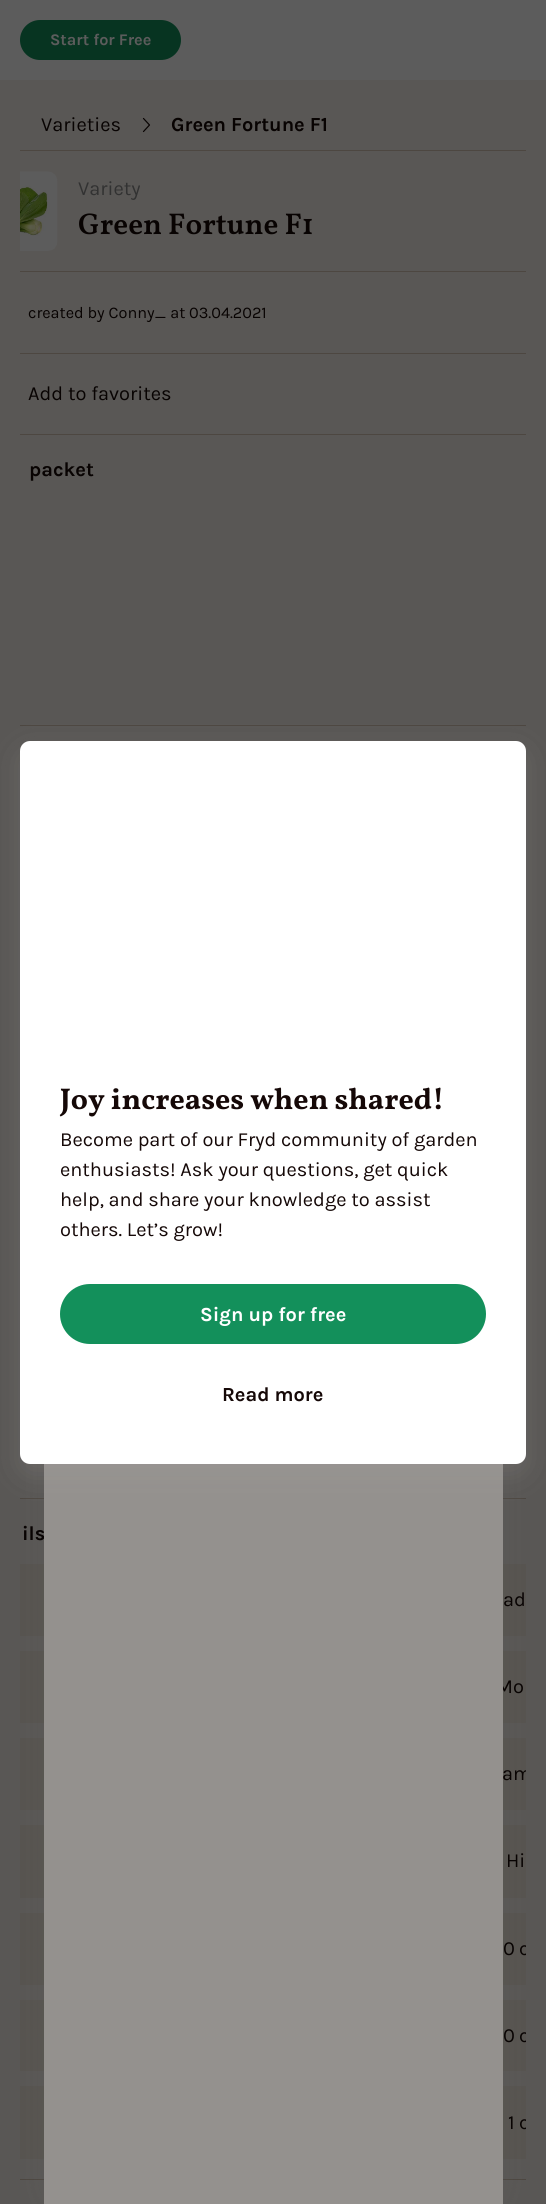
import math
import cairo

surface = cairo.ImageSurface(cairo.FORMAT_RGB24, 546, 2204)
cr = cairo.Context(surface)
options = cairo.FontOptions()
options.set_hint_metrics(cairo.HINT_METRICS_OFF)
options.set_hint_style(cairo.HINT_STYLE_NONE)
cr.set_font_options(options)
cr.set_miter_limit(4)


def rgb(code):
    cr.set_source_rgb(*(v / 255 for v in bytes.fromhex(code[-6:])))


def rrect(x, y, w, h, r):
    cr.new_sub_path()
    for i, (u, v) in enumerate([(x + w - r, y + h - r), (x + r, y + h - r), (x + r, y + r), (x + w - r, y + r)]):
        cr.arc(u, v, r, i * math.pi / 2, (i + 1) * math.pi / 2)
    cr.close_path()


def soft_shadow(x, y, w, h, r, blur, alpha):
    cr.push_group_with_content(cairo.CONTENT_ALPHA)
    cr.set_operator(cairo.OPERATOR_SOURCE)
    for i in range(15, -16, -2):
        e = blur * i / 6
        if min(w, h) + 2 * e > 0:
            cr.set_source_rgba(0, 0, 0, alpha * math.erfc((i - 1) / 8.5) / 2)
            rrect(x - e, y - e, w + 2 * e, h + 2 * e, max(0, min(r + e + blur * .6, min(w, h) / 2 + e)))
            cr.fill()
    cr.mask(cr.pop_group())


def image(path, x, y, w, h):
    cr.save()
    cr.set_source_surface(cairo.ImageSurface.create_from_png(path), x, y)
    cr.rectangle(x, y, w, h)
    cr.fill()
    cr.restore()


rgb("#595755")
cr.paint()
rgb("#5c5c5c")
cr.rectangle(0, 0, 546, 80)
cr.fill()
rgb("#073421")
rrect(20, 20, 161, 40, 20)
cr.fill()
cr.new_path()
cr.move_to(143.5, 118.5)
cr.line_to(149.5, 125)
cr.line_to(143.5, 131.5)
rgb("#080302")
cr.set_line_width(1.2)
cr.set_line_cap(cairo.LINE_CAP_ROUND)
cr.set_line_join(cairo.LINE_JOIN_ROUND)
cr.stroke()
rgb("#4d4741")
cr.rectangle(20, 150, 506, 1)
cr.fill()
image("img/1.png", 20, 171, 38, 80)
for x, y, w, h, color in [
    (20, 271, 506, 1, "#4d4741"),
    (20, 353, 506, 1, "#4d4741"),
    (20, 434, 506, 1, "#4d4741"),
    (20, 725, 506, 1, "#4d4741"),
    (20, 1498, 506, 1, "#4d4741"),
    (20, 1564, 506, 72, "#575450"),
    (20, 1651, 506, 72, "#575450"),
    (20, 1738, 506, 72, "#575450"),
    (20, 1825, 506, 73, "#575450"),
    (20, 1913, 506, 72, "#575450"),
    (20, 2000, 506, 71, "#575450"),
    (20, 2086, 506, 73, "#575450"),
    (20, 2179, 506, 1, "#4d4741"),
]:
    rgb(color)
    cr.rectangle(x, y, w, h)
    cr.fill()
rgb("#646260")
soft_shadow(44, 893, 459, 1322, 31, 12.5, 0.2)
cr.select_font_face("Karla", cairo.FONT_SLANT_NORMAL, cairo.FONT_WEIGHT_BOLD)
cr.set_font_size(16.25)
rgb("#5c5c5c")
cr.move_to(50, 45)
cr.show_text("Start for Free")
cr.select_font_face("Karla")
cr.set_font_size(20)
rgb("#080302")
cr.move_to(41, 131)
cr.show_text("Varieties")
cr.select_font_face("Karla", cairo.FONT_SLANT_NORMAL, cairo.FONT_WEIGHT_BOLD)
cr.move_to(171, 131)
cr.show_text("Green Fortune F1")
cr.select_font_face("Karla")
rgb("#323232")
cr.move_to(78, 195)
cr.show_text("Variety")
cr.select_font_face("Vollkorn SemiBold")
cr.set_font_size(30)
rgb("#080302")
cr.move_to(78, 234)
cr.show_text("Green Fortune F1")
cr.select_font_face("Karla")
cr.set_font_size(16.25)
cr.move_to(28, 318)
cr.show_text("created by Conny_ at 03.04.2021")
cr.set_font_size(20)
cr.move_to(28, 400)
cr.show_text("Add to favorites")
cr.select_font_face("Karla", cairo.FONT_SLANT_NORMAL, cairo.FONT_WEIGHT_BOLD)
cr.move_to(29, 476)
cr.show_text("packet")
cr.move_to(22, 1540)
cr.show_text("ils")
cr.select_font_face("Karla")
cr.move_to(503, 1606)
cr.show_text("ad")
cr.move_to(496, 1693)
cr.show_text("Mo")
cr.save()
cr.rectangle(20, 80, 506, 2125)
cr.clip()
cr.move_to(502, 1780)
cr.show_text("am")
cr.restore()
cr.move_to(506, 1867)
cr.show_text("Hi")
cr.move_to(503, 1955)
cr.show_text("0")
cr.save()
cr.rectangle(20, 80, 506, 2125)
cr.clip()
cr.move_to(519, 1955)
cr.show_text("c")
cr.restore()
cr.move_to(503, 2042)
cr.show_text("0")
cr.save()
cr.rectangle(20, 80, 506, 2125)
cr.clip()
cr.move_to(519, 2042)
cr.show_text("c")
cr.restore()
cr.move_to(508, 2129)
cr.show_text("1")
cr.save()
cr.rectangle(20, 80, 506, 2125)
cr.clip()
cr.move_to(519, 2129)
cr.show_text("c")
cr.restore()
rgb("#94918e")
cr.rectangle(44, 1464, 459, 740)
cr.fill()
rgb("#a7a3a0")
soft_shadow(20, 751, 506, 723, 10, 12.5, 0.2)
rgb("#ffffff")
rrect(20, 741, 506, 723, 10)
cr.fill()
cr.select_font_face("Vollkorn", cairo.FONT_SLANT_NORMAL, cairo.FONT_WEIGHT_BOLD)
cr.set_font_size(30)
rgb("#150807")
cr.move_to(60, 1109)
cr.show_text("Joy increases when shared!")
cr.select_font_face("Karla")
cr.set_font_size(20)
for x, y, s in [
    (60, 1146, "Become part of our Fryd community of garden"),
    (60, 1176, "enthusiasts! Ask your questions, get quick"),
    (60, 1206, "help, and share your knowledge to assist"),
    (60, 1236, "others. Let’s grow!"),
]:
    cr.move_to(x, y)
    cr.show_text(s)
rgb("#13905b")
rrect(60, 1284, 426, 60, 30)
cr.fill()
cr.select_font_face("Karla", cairo.FONT_SLANT_NORMAL, cairo.FONT_WEIGHT_BOLD)
rgb("#ffffff")
cr.move_to(200, 1321)
cr.show_text("Sign up for free")
rgb("#150807")
cr.move_to(222, 1401)
cr.show_text("Read more")
surface.write_to_png("page.png")
